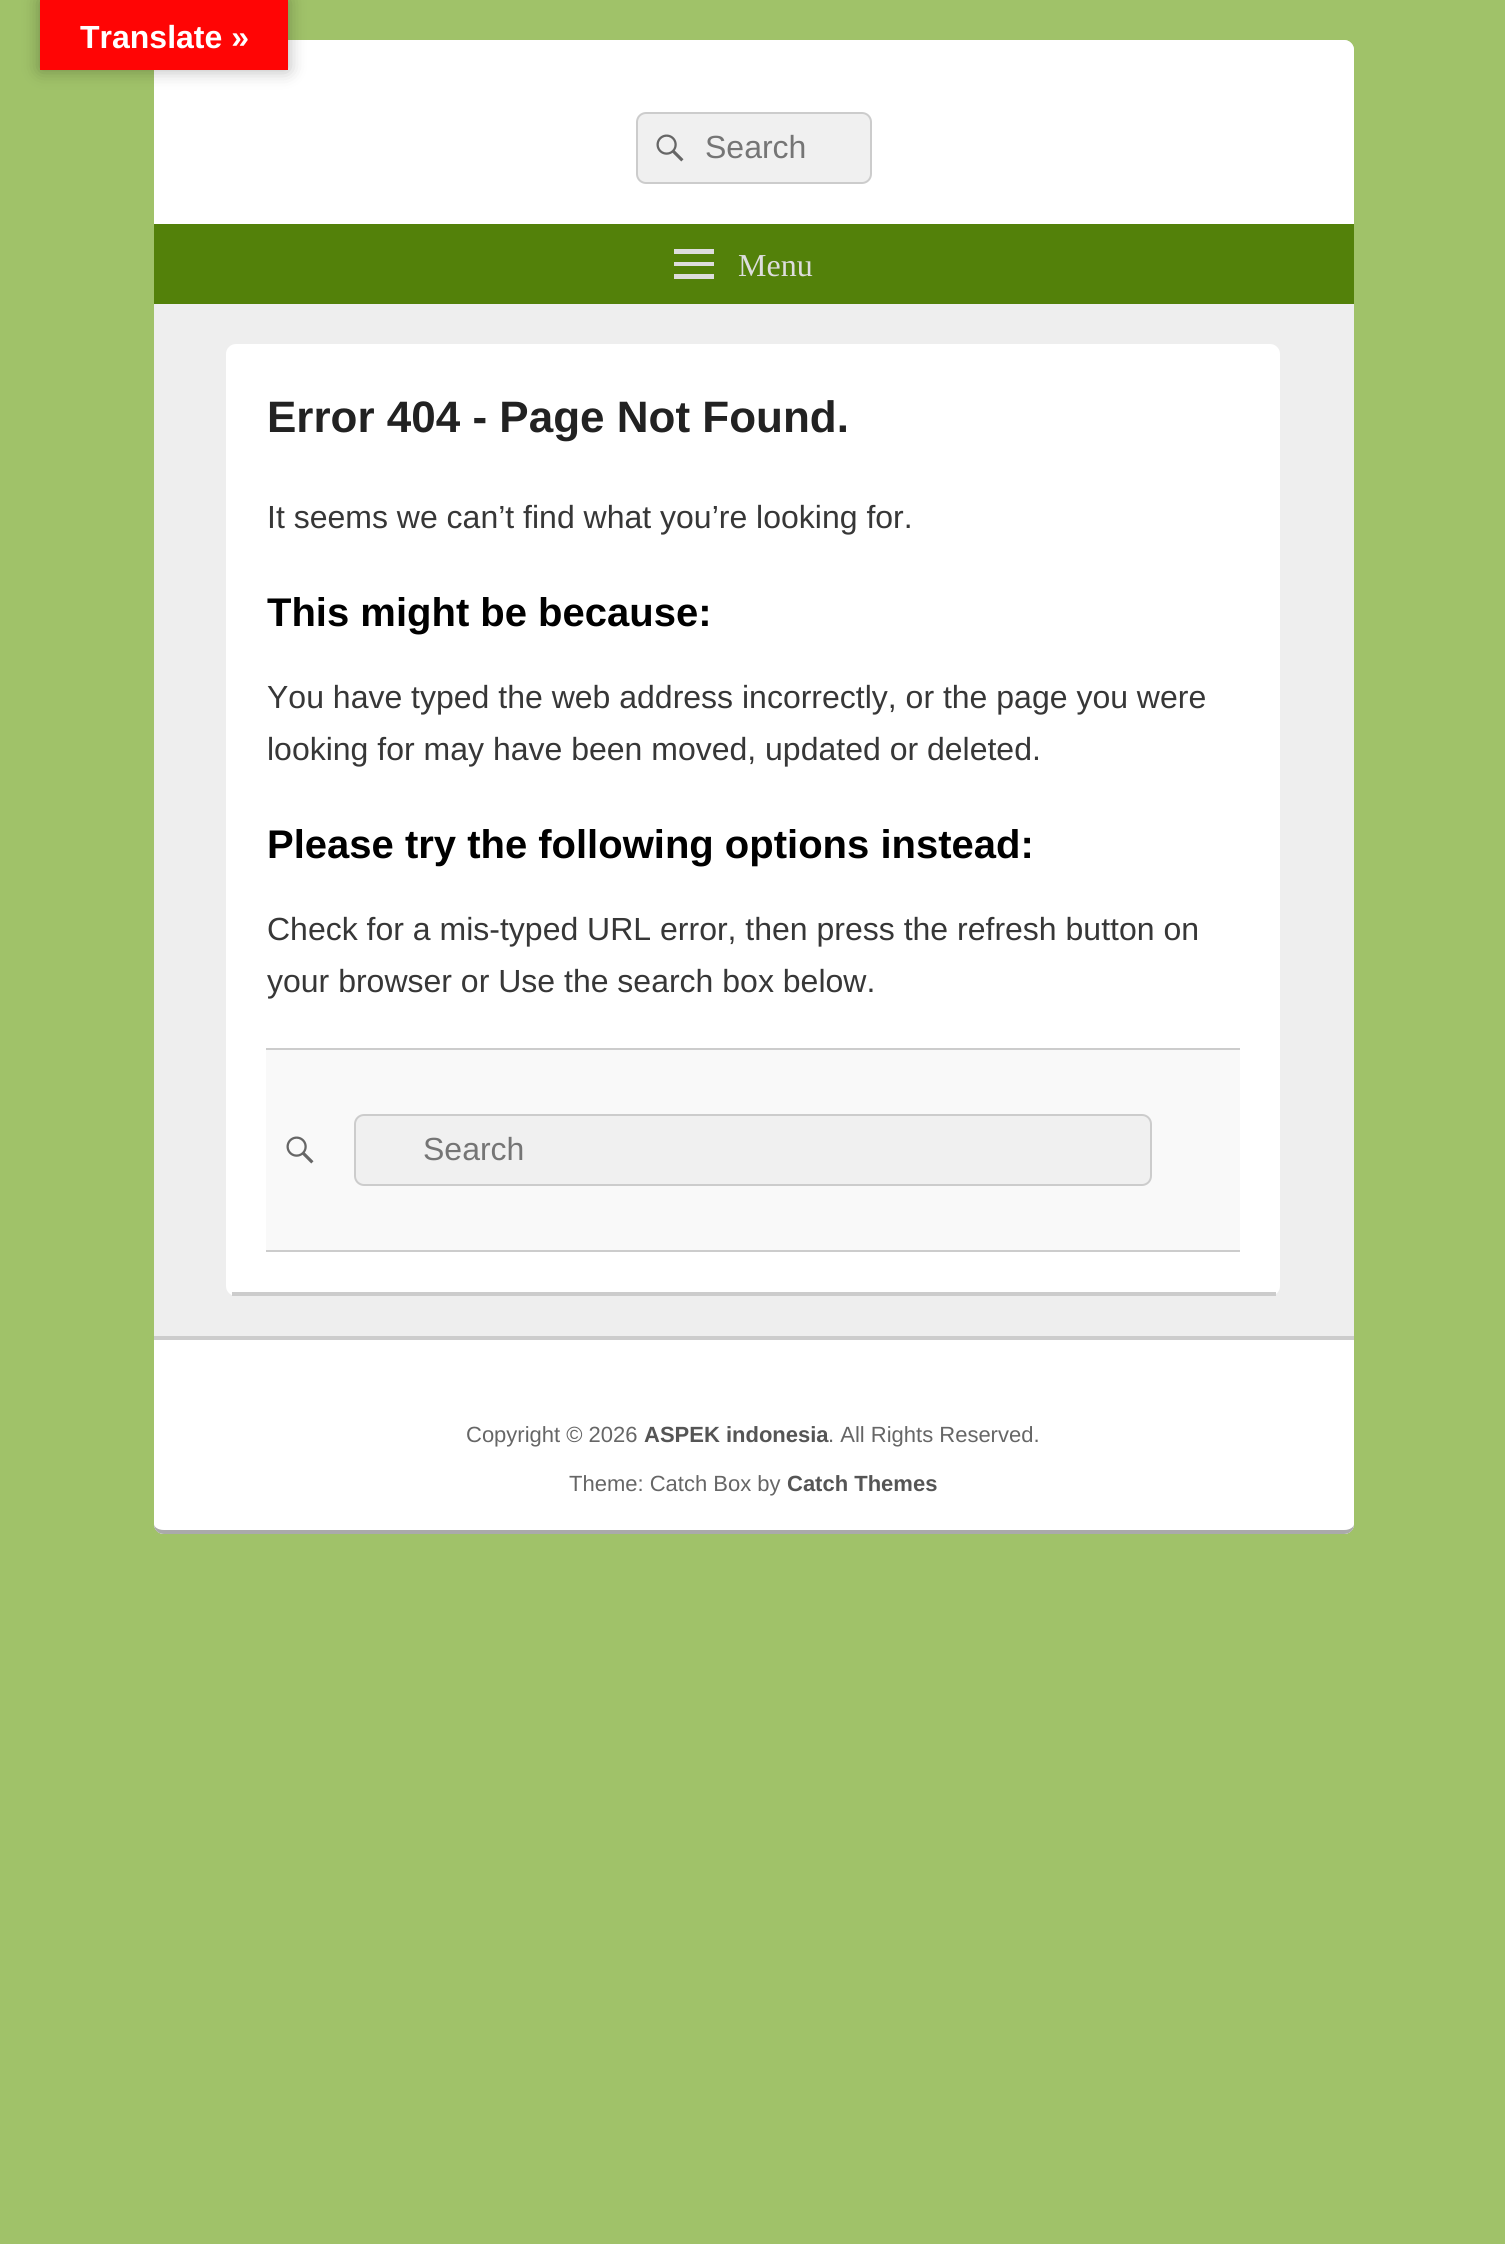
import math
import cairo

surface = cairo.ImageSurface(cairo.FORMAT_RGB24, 1505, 2244)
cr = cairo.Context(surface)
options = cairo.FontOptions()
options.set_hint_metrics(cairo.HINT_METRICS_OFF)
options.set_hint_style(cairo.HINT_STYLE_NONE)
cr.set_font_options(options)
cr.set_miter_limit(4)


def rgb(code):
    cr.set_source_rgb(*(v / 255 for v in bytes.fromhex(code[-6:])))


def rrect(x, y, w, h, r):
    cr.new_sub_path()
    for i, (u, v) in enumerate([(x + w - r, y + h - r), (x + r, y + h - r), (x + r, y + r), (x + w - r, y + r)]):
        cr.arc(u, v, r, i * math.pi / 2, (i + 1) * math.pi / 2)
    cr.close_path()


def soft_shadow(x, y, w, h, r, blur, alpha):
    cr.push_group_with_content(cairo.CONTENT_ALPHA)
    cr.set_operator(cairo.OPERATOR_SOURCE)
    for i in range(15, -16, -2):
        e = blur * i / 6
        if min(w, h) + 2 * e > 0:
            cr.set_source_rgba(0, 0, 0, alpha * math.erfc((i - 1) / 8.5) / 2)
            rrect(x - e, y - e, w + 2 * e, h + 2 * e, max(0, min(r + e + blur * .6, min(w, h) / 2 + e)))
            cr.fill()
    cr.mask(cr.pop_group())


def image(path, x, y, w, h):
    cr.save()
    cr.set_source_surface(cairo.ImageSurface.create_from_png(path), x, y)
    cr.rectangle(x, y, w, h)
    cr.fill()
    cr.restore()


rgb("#a0c269")
cr.paint()
rgb("#eeeeee")
rrect(154, 40, 1200, 1494, 10)
cr.fill()
rgb("#ffffff")
cr.new_path()
cr.move_to(164, 40)
cr.line_to(1344, 40)
cr.curve_to(1349.5, 40, 1354, 44.5, 1354, 50)
cr.line_to(1354, 304)
cr.line_to(154, 304)
cr.line_to(154, 50)
cr.curve_to(154, 44.5, 158.5, 40, 164, 40)
cr.close_path()
cr.fill()
rgb("#000000")
soft_shadow(40, 0, 248, 70, 0, 9, 0.3)
rgb("#ff0505")
cr.rectangle(40, 0, 248, 70)
cr.fill()
rgb("#f0f0f0")
rrect(637, 113, 234, 70, 9)
cr.fill_preserve()
rgb("#cccccc")
cr.stroke()
image("img/1.png", 656, 134, 28, 28)
rgb("#53810a")
cr.rectangle(154, 224, 1200, 80)
cr.fill()
rgb("#dddddd")
cr.new_path()
cr.move_to(674, 279)
cr.line_to(674, 274)
cr.line_to(714, 274)
cr.line_to(714, 279)
cr.close_path()
cr.move_to(674, 249)
cr.line_to(714, 249)
cr.line_to(714, 254)
cr.line_to(674, 254)
cr.close_path()
cr.move_to(674, 266)
cr.line_to(674, 262)
cr.line_to(714, 262)
cr.line_to(714, 266)
cr.close_path()
cr.fill()
rgb("#ffffff")
rrect(226, 344, 1054, 952, 10)
cr.fill()
for x, y, w, h, color in [
    (232, 1292, 1044, 4, "#cccccc"),
    (266, 1050, 974, 200, "#f9f9f9"),
    (266, 1048, 974, 2, "#cccccc"),
    (266, 1250, 974, 2, "#cccccc"),
]:
    rgb(color)
    cr.rectangle(x, y, w, h)
    cr.fill()
image("img/2.png", 286, 1136, 28, 28)
rgb("#f0f0f0")
rrect(355, 1115, 796, 70, 9)
cr.fill_preserve()
rgb("#cccccc")
cr.stroke()
cr.rectangle(154, 1336, 1200, 2)
cr.fill()
rgb("#ffffff")
cr.new_path()
cr.move_to(154, 1338)
cr.line_to(1354, 1338)
cr.line_to(1354, 1524)
cr.curve_to(1354, 1529.5, 1349.5, 1534, 1344, 1534)
cr.line_to(164, 1534)
cr.curve_to(158.5, 1534, 154, 1529.5, 154, 1524)
cr.close_path()
cr.fill()
rgb("#cccccc")
cr.rectangle(154, 1338, 1200, 2)
cr.fill()
rgb("#aaaaaa")
cr.new_path()
cr.move_to(164, 1534)
cr.line_to(1344, 1534)
cr.curve_to(1350, 1534, 1354, 1530, 1354, 1524)
cr.curve_to(1354, 1527, 1350, 1530, 1344, 1530)
cr.line_to(164, 1530)
cr.curve_to(158, 1530, 154, 1527, 154, 1524)
cr.curve_to(154, 1530, 158, 1534, 164, 1534)
cr.close_path()
cr.fill()
cr.select_font_face("Liberation Sans", cairo.FONT_SLANT_NORMAL, cairo.FONT_WEIGHT_BOLD)
cr.set_font_size(32)
rgb("#ffffff")
cr.move_to(80, 48)
cr.show_text("Translate »")
cr.select_font_face("Liberation Sans")
rgb("#757575")
cr.move_to(705, 158)
cr.show_text("Search")
cr.select_font_face("Liberation Serif")
rgb("#dddddd")
cr.move_to(738, 276)
cr.show_text("Menu")
cr.select_font_face("Liberation Sans", cairo.FONT_SLANT_NORMAL, cairo.FONT_WEIGHT_BOLD)
cr.set_font_size(44)
rgb("#222222")
cr.move_to(267, 432)
cr.show_text("Error 404 - Page Not Found.")
cr.select_font_face("Liberation Sans")
cr.set_font_size(32)
rgb("#373737")
cr.move_to(267, 528)
cr.show_text("It seems we can’t find what you’re looking for.")
cr.select_font_face("Liberation Sans", cairo.FONT_SLANT_NORMAL, cairo.FONT_WEIGHT_BOLD)
cr.set_font_size(40)
rgb("#000000")
cr.move_to(267, 626)
cr.show_text("This might be because:")
cr.select_font_face("Liberation Sans")
cr.set_font_size(32)
rgb("#373737")
cr.move_to(267, 708)
cr.show_text("You have typed the web address incorrectly, or the page you were")
cr.move_to(267, 760)
cr.show_text("looking for may have been moved, updated or deleted.")
cr.select_font_face("Liberation Sans", cairo.FONT_SLANT_NORMAL, cairo.FONT_WEIGHT_BOLD)
cr.set_font_size(40)
rgb("#000000")
cr.move_to(267, 858)
cr.show_text("Please try the following options instead:")
cr.select_font_face("Liberation Sans")
cr.set_font_size(32)
rgb("#373737")
cr.move_to(267, 940)
cr.show_text("Check for a mis-typed URL error, then press the refresh button on")
cr.move_to(267, 992)
cr.show_text("your browser or Use the search box below.")
rgb("#757575")
cr.move_to(423, 1160)
cr.show_text("Search")
cr.set_font_size(22)
rgb("#666666")
cr.move_to(466, 1442)
cr.show_text("Copyright © 2026")
cr.select_font_face("Liberation Sans", cairo.FONT_SLANT_NORMAL, cairo.FONT_WEIGHT_BOLD)
rgb("#555555")
cr.move_to(644, 1442)
cr.show_text("ASPEK indonesia")
cr.select_font_face("Liberation Sans")
rgb("#666666")
cr.move_to(828, 1442)
cr.show_text(". All Rights Reserved.")
cr.move_to(569, 1491)
cr.show_text("Theme: Catch Box by")
cr.select_font_face("Liberation Sans", cairo.FONT_SLANT_NORMAL, cairo.FONT_WEIGHT_BOLD)
rgb("#555555")
cr.move_to(787, 1491)
cr.show_text("Catch Themes")
surface.write_to_png("page.png")
